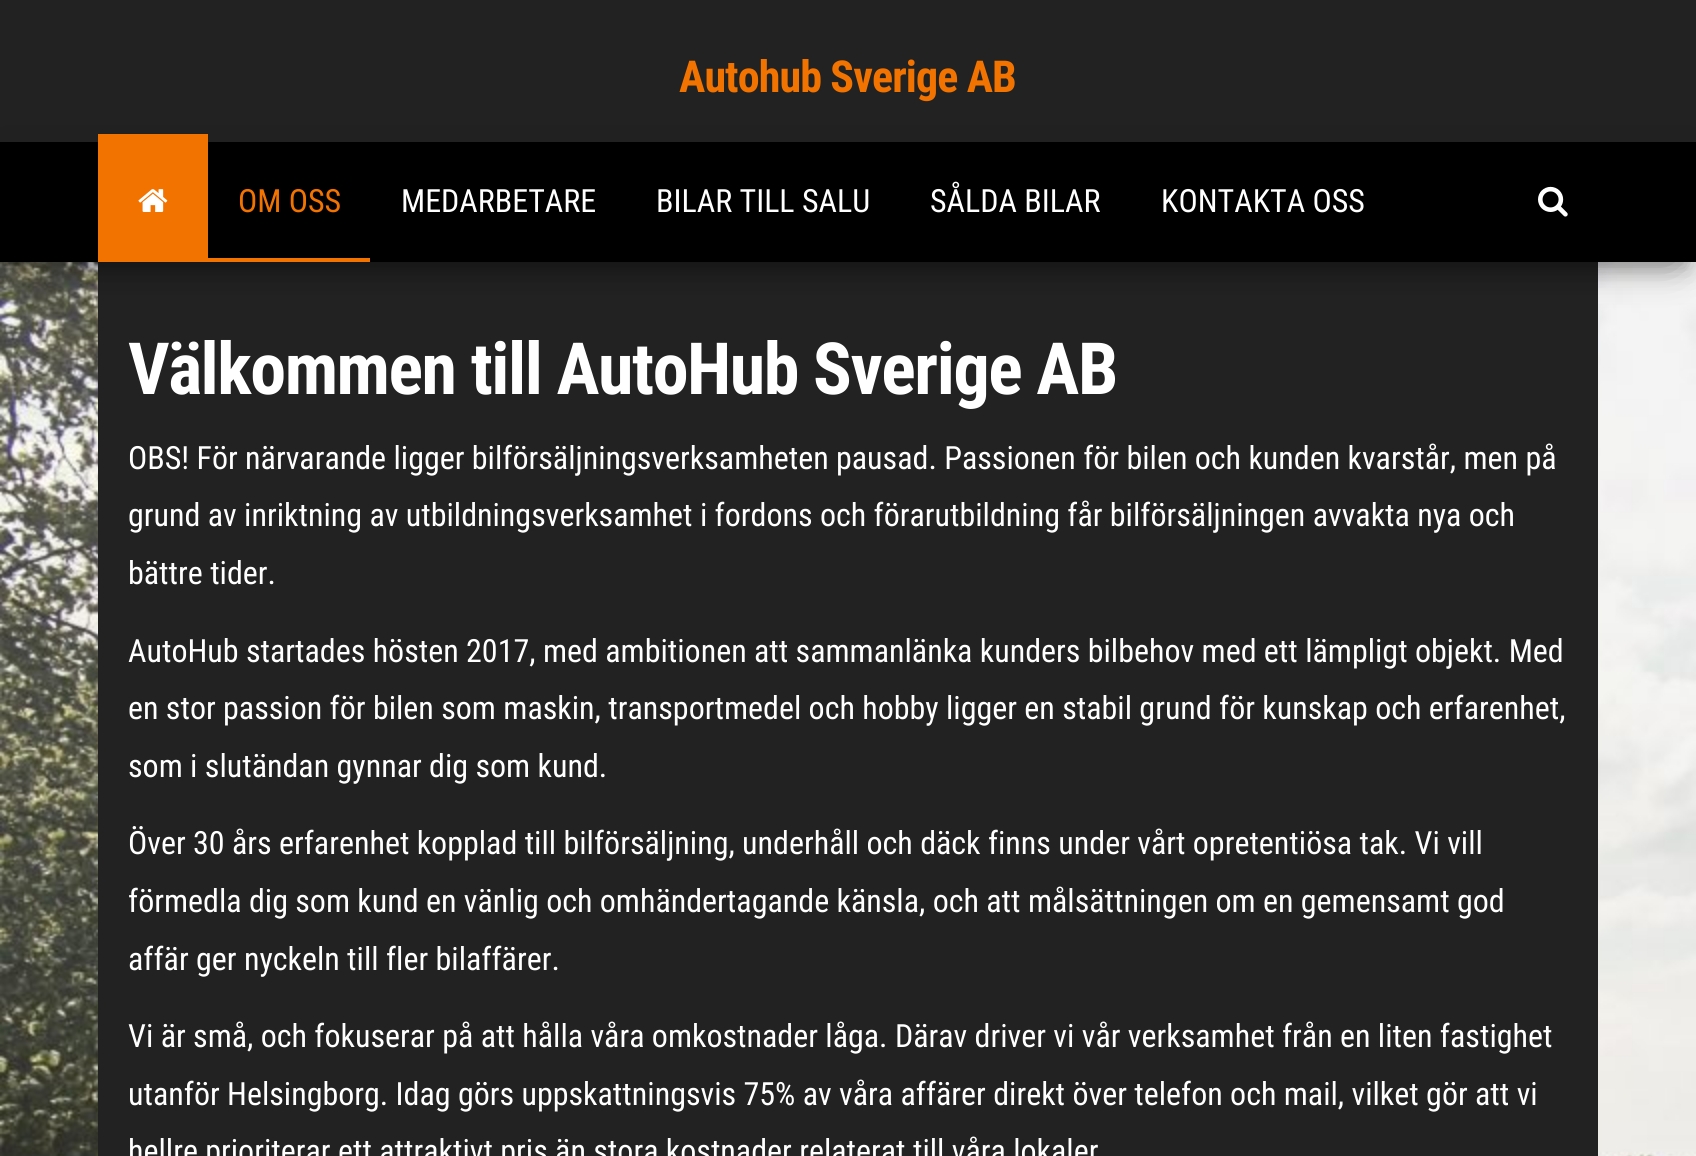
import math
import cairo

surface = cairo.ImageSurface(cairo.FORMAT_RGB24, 1696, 1156)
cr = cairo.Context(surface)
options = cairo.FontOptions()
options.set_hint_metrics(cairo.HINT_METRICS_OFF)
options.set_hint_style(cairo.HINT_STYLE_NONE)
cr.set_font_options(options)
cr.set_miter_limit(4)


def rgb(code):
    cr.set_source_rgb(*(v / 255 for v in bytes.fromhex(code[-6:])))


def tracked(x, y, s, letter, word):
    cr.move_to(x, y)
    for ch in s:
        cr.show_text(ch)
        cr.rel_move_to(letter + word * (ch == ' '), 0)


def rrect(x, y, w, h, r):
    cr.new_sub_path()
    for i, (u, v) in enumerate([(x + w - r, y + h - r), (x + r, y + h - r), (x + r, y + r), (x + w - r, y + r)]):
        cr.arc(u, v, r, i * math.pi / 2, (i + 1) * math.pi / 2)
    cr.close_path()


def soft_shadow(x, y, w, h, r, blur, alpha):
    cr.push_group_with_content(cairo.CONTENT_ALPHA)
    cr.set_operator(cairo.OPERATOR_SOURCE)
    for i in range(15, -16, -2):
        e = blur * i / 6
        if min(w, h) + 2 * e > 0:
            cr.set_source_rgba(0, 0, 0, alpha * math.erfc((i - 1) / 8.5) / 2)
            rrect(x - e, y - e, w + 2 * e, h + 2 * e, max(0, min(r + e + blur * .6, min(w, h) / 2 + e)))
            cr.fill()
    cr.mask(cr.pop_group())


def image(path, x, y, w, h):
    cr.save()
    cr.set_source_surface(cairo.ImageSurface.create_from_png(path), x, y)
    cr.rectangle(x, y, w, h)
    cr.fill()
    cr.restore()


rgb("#ffffff")
cr.paint()
image("img/1.png", 0, 262, 1696, 894)
rgb("#222222")
cr.rectangle(0, 0, 1696, 142)
cr.fill()
cr.rectangle(98, 262, 1500, 894)
cr.fill()
rgb("#000000")
soft_shadow(10, 168, 1676, 100, 0, 10, 0.2)
soft_shadow(0, 148, 1696, 120, 0, 20, 0.12)
soft_shadow(24, 186, 1648, 72, 0, 20, 0.42)
rgb("#000000")
cr.rectangle(0, 142, 1696, 120)
cr.fill()
rgb("#f27300")
cr.rectangle(98, 134, 110, 128)
cr.fill()
image("img/2.png", 138, 189, 30, 23)
cr.rectangle(208, 258, 162, 4)
cr.fill()
image("img/3.png", 1538, 186, 30, 31)
cr.select_font_face("Roboto Condensed", cairo.FONT_SLANT_NORMAL, cairo.FONT_WEIGHT_BOLD)
cr.set_font_size(44)
tracked(679, 92, "Autohub Sverige AB", -0.9, 0)
cr.select_font_face("Roboto Condensed")
cr.set_font_size(32)
cr.move_to(238, 212)
cr.show_text("OM OSS")
rgb("#ffffff")
for x, y, s in [
    (401, 212, "MEDARBETARE"),
    (656, 212, "BILAR TILL SALU"),
    (930, 212, "SÅLDA BILAR"),
    (1161, 212, "KONTAKTA OSS"),
]:
    cr.move_to(x, y)
    cr.show_text(s)
cr.select_font_face("Roboto Condensed", cairo.FONT_SLANT_NORMAL, cairo.FONT_WEIGHT_BOLD)
cr.set_font_size(72)
tracked(128, 394, "Välkommen till AutoHub Sverige AB", -1.45, 0)
cr.select_font_face("Roboto Condensed")
cr.set_font_size(32)
for x, y, s in [
    (128, 469, "OBS! För närvarande ligger bilförsäljningsverksamheten pausad. Passionen för bilen och kunden kvarstår, men på"),
    (128, 526, "grund av inriktning av utbildningsverksamhet i fordons och förarutbildning får bilförsäljningen avvakta nya och"),
    (128, 584, "bättre tider."),
    (128, 662, "AutoHub startades hösten 2017, med ambitionen att sammanlänka kunders bilbehov med ett lämpligt objekt. Med"),
    (128, 719, "en stor passion för bilen som maskin, transportmedel och hobby ligger en stabil grund för kunskap och erfarenhet,"),
    (128, 777, "som i slutändan gynnar dig som kund."),
    (128, 854, "Över 30 års erfarenhet kopplad till bilförsäljning, underhåll och däck finns under vårt opretentiösa tak. Vi vill"),
    (128, 912, "förmedla dig som kund en vänlig och omhändertagande känsla, och att målsättningen om en gemensamt god"),
    (128, 970, "affär ger nyckeln till fler bilaffärer."),
    (128, 1047, "Vi är små, och fokuserar på att hålla våra omkostnader låga. Därav driver vi vår verksamhet från en liten fastighet"),
    (128, 1105, "utanför Helsingborg. Idag görs uppskattningsvis 75% av våra affärer direkt över telefon och mail, vilket gör att vi"),
    (128, 1162, "hellre prioriterar ett attraktivt pris än stora kostnader relaterat till våra lokaler"),
]:
    cr.move_to(x, y)
    cr.show_text(s)
surface.write_to_png("page.png")
